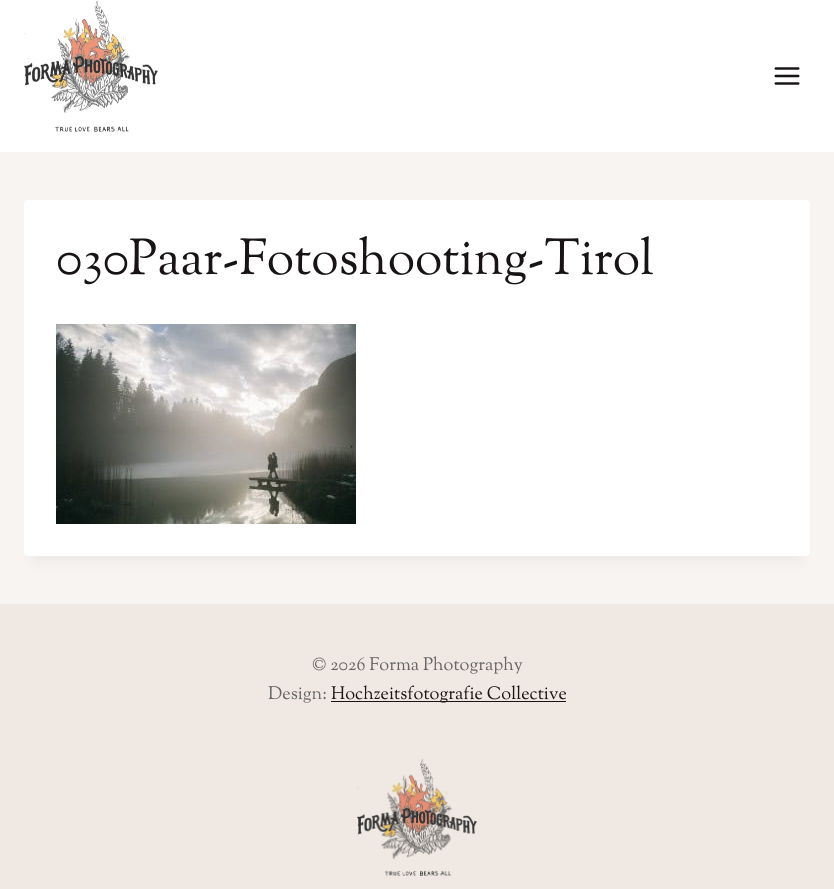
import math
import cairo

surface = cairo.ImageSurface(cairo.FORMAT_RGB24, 834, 889)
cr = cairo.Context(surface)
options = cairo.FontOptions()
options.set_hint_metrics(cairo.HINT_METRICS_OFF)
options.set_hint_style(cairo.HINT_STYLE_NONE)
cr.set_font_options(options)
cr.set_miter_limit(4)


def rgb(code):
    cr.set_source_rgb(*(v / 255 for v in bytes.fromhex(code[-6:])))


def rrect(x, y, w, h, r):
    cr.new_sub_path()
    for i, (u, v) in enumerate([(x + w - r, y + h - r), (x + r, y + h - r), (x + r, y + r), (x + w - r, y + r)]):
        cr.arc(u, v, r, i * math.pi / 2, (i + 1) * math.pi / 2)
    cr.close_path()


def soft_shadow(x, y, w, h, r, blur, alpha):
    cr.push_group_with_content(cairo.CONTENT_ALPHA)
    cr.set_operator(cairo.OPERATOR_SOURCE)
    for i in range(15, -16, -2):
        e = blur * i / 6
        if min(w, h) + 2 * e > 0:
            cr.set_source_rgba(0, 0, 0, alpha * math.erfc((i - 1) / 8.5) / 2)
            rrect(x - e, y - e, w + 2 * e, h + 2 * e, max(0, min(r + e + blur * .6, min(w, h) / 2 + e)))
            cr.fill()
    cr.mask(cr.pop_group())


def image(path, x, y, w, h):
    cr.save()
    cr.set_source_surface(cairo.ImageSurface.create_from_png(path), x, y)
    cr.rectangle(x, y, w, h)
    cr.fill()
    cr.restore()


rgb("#f7f4f1")
cr.paint()
rgb("#ffffff")
cr.rectangle(0, 0, 834, 152)
cr.fill()
image("img/1.png", 24, 1, 134, 131)
image("img/2.png", 774, 67, 26, 18)
rgb("#000000")
soft_shadow(34, 225, 766, 336, 0, 7.5, 0.05)
rgb("#ffffff")
rrect(24, 200, 786, 356, 4)
cr.fill()
image("img/3.png", 56, 324, 300, 200)
rgb("#f0e9e3")
cr.rectangle(0, 604, 834, 285)
cr.fill()
rgb("#181415")
cr.rectangle(331, 701, 235, 1)
cr.fill()
image("img/4.png", 357, 758, 120, 118)
cr.select_font_face("Sorts Mill Goudy")
cr.set_font_size(50)
cr.move_to(56, 274)
cr.show_text("030Paar-Fotoshooting-Tirol")
cr.set_font_size(18)
rgb("#656464")
cr.move_to(312, 670)
cr.show_text("© 2026 Forma Photography")
cr.move_to(268, 699)
cr.show_text("Design:")
rgb("#181415")
cr.move_to(331, 699)
cr.show_text("Hochzeitsfotografie Collective")
surface.write_to_png("page.png")
